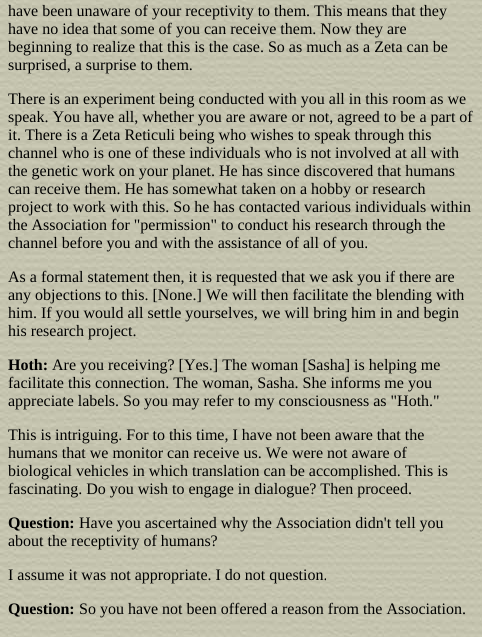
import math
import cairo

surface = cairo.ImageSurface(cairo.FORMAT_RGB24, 482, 637)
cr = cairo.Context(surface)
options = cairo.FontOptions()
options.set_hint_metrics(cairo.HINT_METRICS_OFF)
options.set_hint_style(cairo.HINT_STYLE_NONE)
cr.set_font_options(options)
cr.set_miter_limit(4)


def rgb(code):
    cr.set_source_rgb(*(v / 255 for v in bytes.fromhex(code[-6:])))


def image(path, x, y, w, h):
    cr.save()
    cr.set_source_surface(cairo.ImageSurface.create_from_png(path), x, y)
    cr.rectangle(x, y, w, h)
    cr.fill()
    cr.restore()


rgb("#ffffff")
cr.paint()
image("img/1.png", 0, 0, 482, 637)
cr.select_font_face("Liberation Serif")
cr.set_font_size(16)
rgb("#000000")
for x, y, s in [
    (8, 16, "have been unaware of your receptivity to them. This means that they"),
    (8, 34, "have no idea that some of you can receive them. Now they are"),
    (8, 52, "beginning to realize that this is the case. So as much as a Zeta can be"),
    (8, 70, "surprised, a surprise to them."),
    (8, 104, "There is an experiment being conducted with you all in this room as we"),
    (8, 122, "speak. You have all, whether you are aware or not, agreed to be a part of"),
    (8, 140, "it. There is a Zeta Reticuli being who wishes to speak through this"),
    (8, 158, "channel who is one of these individuals who is not involved at all with"),
    (8, 176, "the genetic work on your planet. He has since discovered that humans"),
    (8, 194, "can receive them. He has somewhat taken on a hobby or research"),
    (8, 212, "project to work with this. So he has contacted various individuals within"),
    (8, 230, "the Association for \"permission\" to conduct his research through the"),
    (8, 248, "channel before you and with the assistance of all of you."),
    (8, 282, "As a formal statement then, it is requested that we ask you if there are"),
    (8, 300, "any objections to this. [None.] We will then facilitate the blending with"),
    (8, 318, "him. If you would all settle yourselves, we will bring him in and begin"),
    (8, 336, "his research project."),
]:
    cr.move_to(x, y)
    cr.show_text(s)
cr.select_font_face("Liberation Serif", cairo.FONT_SLANT_NORMAL, cairo.FONT_WEIGHT_BOLD)
cr.move_to(8, 370)
cr.show_text("Hoth:")
cr.select_font_face("Liberation Serif")
for x, y, s in [
    (52, 370, "Are you receiving? [Yes.] The woman [Sasha] is helping me"),
    (8, 388, "facilitate this connection. The woman, Sasha. She informs me you"),
    (8, 406, "appreciate labels. So you may refer to my consciousness as \"Hoth.\""),
    (8, 440, "This is intriguing. For to this time, I have not been aware that the"),
    (8, 458, "humans that we monitor can receive us. We were not aware of"),
    (8, 476, "biological vehicles in which translation can be accomplished. This is"),
    (8, 494, "fascinating. Do you wish to engage in dialogue? Then proceed."),
]:
    cr.move_to(x, y)
    cr.show_text(s)
cr.select_font_face("Liberation Serif", cairo.FONT_SLANT_NORMAL, cairo.FONT_WEIGHT_BOLD)
cr.move_to(8, 528)
cr.show_text("Question:")
cr.select_font_face("Liberation Serif")
for x, y, s in [
    (79, 528, "Have you ascertained why the Association didn't tell you"),
    (8, 546, "about the receptivity of humans?"),
    (8, 580, "I assume it was not appropriate. I do not question."),
]:
    cr.move_to(x, y)
    cr.show_text(s)
cr.select_font_face("Liberation Serif", cairo.FONT_SLANT_NORMAL, cairo.FONT_WEIGHT_BOLD)
cr.move_to(8, 614)
cr.show_text("Question:")
cr.select_font_face("Liberation Serif")
cr.move_to(79, 614)
cr.show_text("So you have not been offered a reason from the Association.")
surface.write_to_png("page.png")
